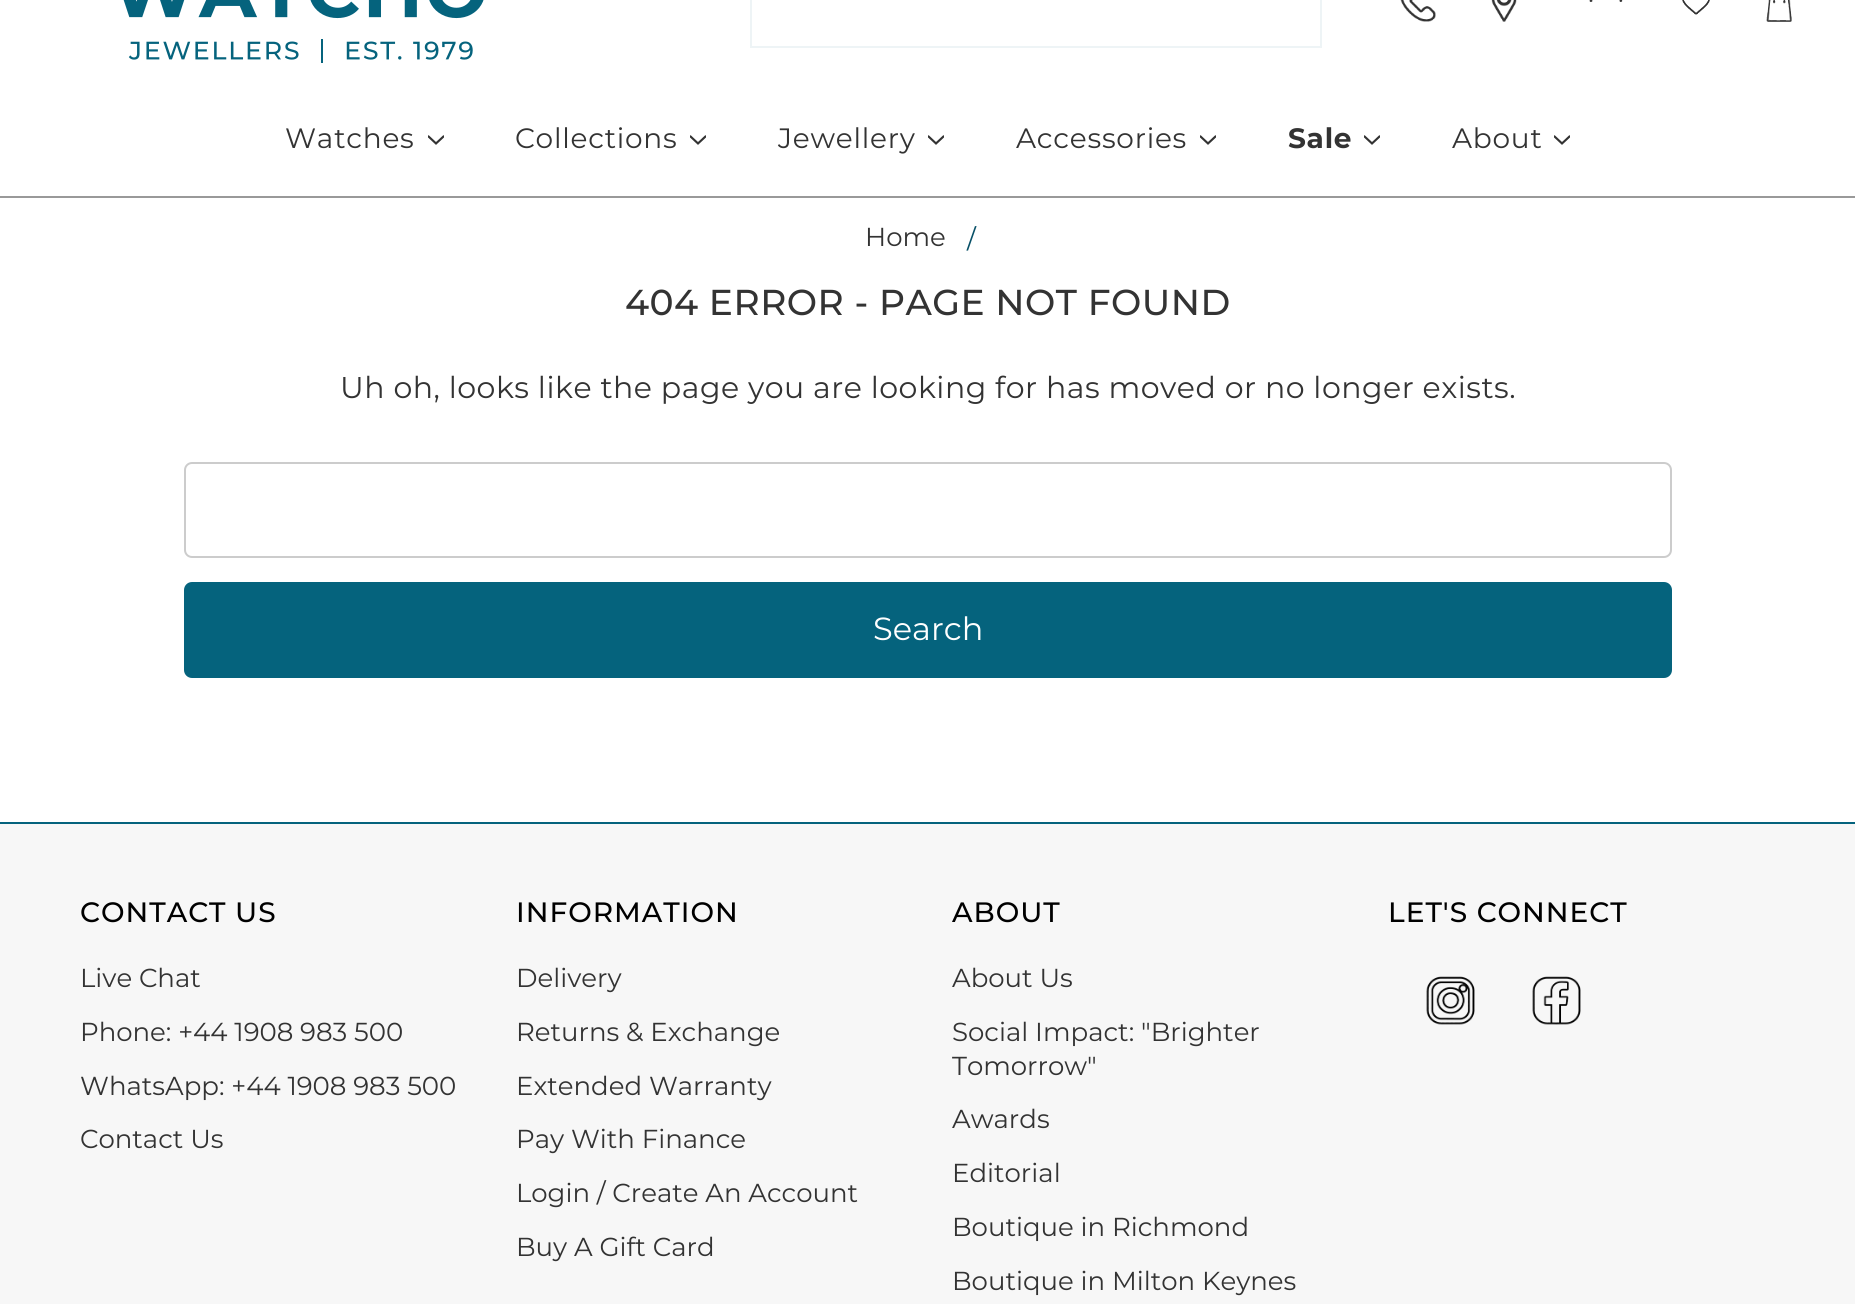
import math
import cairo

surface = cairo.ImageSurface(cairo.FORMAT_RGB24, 1855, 1304)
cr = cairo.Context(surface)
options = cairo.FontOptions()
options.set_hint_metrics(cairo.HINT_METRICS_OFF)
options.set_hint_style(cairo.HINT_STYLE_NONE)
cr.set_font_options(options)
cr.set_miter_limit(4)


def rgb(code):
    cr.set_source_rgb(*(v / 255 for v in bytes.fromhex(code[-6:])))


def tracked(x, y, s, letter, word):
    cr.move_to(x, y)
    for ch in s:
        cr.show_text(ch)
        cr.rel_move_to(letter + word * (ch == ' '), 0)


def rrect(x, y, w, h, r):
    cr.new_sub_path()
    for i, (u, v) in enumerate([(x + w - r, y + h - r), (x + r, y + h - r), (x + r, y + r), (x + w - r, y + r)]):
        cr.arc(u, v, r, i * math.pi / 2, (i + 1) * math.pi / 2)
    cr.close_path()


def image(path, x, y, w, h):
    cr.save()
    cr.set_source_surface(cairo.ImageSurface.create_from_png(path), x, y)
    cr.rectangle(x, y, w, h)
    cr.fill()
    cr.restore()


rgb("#ffffff")
cr.paint()
rgb("#999999")
cr.rectangle(0, 196, 1855, 2)
cr.fill()
image("img/1.png", 123, 0, 361, 63)
cr.rectangle(751, -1, 570, 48)
rgb("#eef4f6")
cr.stroke()
image("img/2.png", 1400, 0, 36, 22)
image("img/3.png", 1491, 0, 26, 22)
image("img/4.png", 1589, 0, 34, 2)
image("img/5.png", 1682, 0, 28, 15)
image("img/6.png", 1766, 0, 26, 22)
image("img/7.png", 428, 135, 16, 10)
image("img/7.png", 690, 135, 16, 10)
image("img/7.png", 928, 135, 16, 10)
image("img/7.png", 1200, 135, 16, 10)
image("img/7.png", 1364, 135, 16, 10)
image("img/7.png", 1554, 135, 16, 10)
rrect(185, 463, 1486, 94, 7)
rgb("#cccccc")
cr.stroke()
rgb("#05637d")
rrect(185, 583, 1486, 94, 7)
cr.fill_preserve()
cr.stroke()
rgb("#f7f7f7")
cr.rectangle(0, 824, 1855, 480)
cr.fill()
rgb("#05637d")
cr.rectangle(0, 822, 1855, 2)
cr.fill()
image("img/8.png", 1426, 976, 49, 49)
image("img/9.png", 1532, 976, 49, 49)
cr.select_font_face("Montserrat")
cr.set_font_size(28)
rgb("#333333")
for x, y, s in [
    (285, 148, "Watches"),
    (515, 148, "Collections"),
    (778, 148, "Jewellery"),
    (1016, 148, "Accessories"),
]:
    tracked(x, y, s, 0.75, 0)
cr.select_font_face("Montserrat", cairo.FONT_SLANT_NORMAL, cairo.FONT_WEIGHT_BOLD)
tracked(1288, 148, "Sale", 0.75, 0)
cr.select_font_face("Montserrat")
tracked(1452, 148, "About", 0.75, 0)
cr.set_font_size(26)
cr.move_to(865, 246)
cr.show_text("Home")
rgb("#085067")
cr.move_to(967, 248)
cr.show_text("/")
cr.select_font_face("Montserrat Medium")
cr.set_font_size(36)
rgb("#333333")
tracked(625, 315, "404 ERROR - PAGE NOT FOUND", 0.5, 0)
cr.select_font_face("Montserrat")
cr.set_font_size(30)
tracked(340, 398, "Uh oh, looks like the page you are looking for has moved or no longer exists.", 0.5, 0)
cr.set_font_size(32)
rgb("#ffffff")
cr.move_to(873, 640)
cr.show_text("Search")
cr.select_font_face("Montserrat Medium")
cr.set_font_size(28)
rgb("#000000")
tracked(80, 922, "CONTACT US", 1, 0)
cr.select_font_face("Montserrat")
cr.set_font_size(26)
rgb("#333333")
for x, y, s in [
    (80, 987, "Live Chat"),
    (80, 1041, "Phone: +44 1908 983 500"),
    (80, 1095, "WhatsApp: +44 1908 983 500"),
    (80, 1148, "Contact Us"),
]:
    cr.move_to(x, y)
    cr.show_text(s)
cr.select_font_face("Montserrat Medium")
cr.set_font_size(28)
rgb("#000000")
tracked(516, 922, "INFORMATION", 1, 0)
cr.select_font_face("Montserrat")
cr.set_font_size(26)
rgb("#333333")
for x, y, s in [
    (516, 987, "Delivery"),
    (516, 1041, "Returns & Exchange"),
    (516, 1095, "Extended Warranty"),
    (516, 1148, "Pay With Finance"),
    (516, 1202, "Login / Create An Account"),
    (516, 1256, "Buy A Gift Card"),
]:
    cr.move_to(x, y)
    cr.show_text(s)
cr.select_font_face("Montserrat Medium")
cr.set_font_size(28)
rgb("#000000")
tracked(952, 922, "ABOUT", 1, 0)
cr.select_font_face("Montserrat")
cr.set_font_size(26)
rgb("#333333")
for x, y, s in [
    (952, 987, "About Us"),
    (952, 1041, "Social Impact: \"Brighter"),
    (952, 1075, "Tomorrow\""),
    (952, 1128, "Awards"),
    (952, 1182, "Editorial"),
    (952, 1236, "Boutique in Richmond"),
    (952, 1290, "Boutique in Milton Keynes"),
]:
    cr.move_to(x, y)
    cr.show_text(s)
cr.select_font_face("Montserrat Medium")
cr.set_font_size(28)
rgb("#000000")
tracked(1388, 922, "LET'S CONNECT", 1, 0)
surface.write_to_png("page.png")
